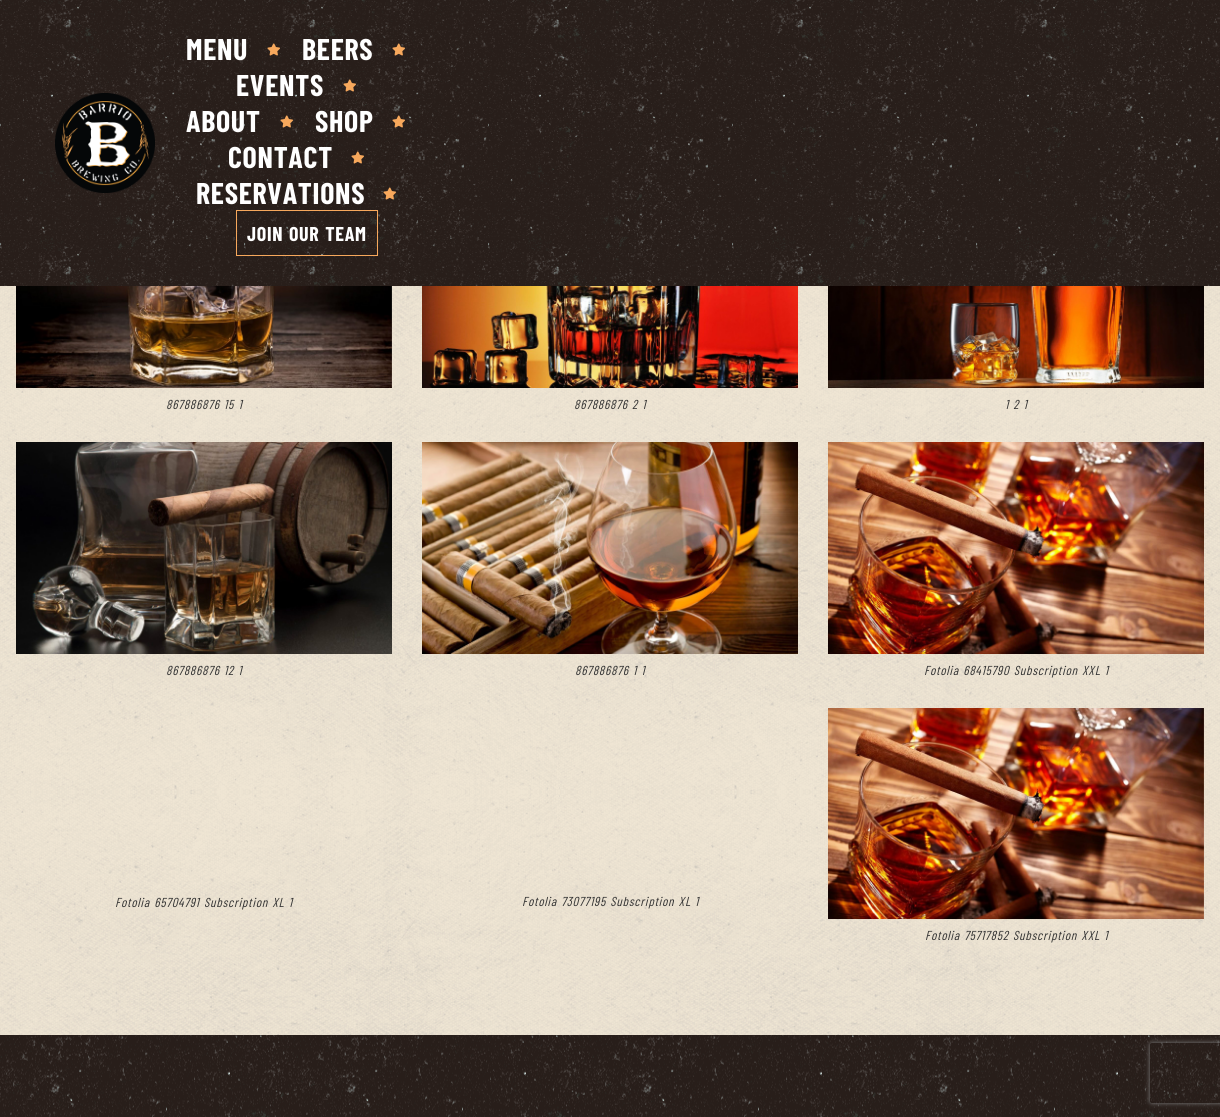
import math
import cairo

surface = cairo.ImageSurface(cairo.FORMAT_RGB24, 1220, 1117)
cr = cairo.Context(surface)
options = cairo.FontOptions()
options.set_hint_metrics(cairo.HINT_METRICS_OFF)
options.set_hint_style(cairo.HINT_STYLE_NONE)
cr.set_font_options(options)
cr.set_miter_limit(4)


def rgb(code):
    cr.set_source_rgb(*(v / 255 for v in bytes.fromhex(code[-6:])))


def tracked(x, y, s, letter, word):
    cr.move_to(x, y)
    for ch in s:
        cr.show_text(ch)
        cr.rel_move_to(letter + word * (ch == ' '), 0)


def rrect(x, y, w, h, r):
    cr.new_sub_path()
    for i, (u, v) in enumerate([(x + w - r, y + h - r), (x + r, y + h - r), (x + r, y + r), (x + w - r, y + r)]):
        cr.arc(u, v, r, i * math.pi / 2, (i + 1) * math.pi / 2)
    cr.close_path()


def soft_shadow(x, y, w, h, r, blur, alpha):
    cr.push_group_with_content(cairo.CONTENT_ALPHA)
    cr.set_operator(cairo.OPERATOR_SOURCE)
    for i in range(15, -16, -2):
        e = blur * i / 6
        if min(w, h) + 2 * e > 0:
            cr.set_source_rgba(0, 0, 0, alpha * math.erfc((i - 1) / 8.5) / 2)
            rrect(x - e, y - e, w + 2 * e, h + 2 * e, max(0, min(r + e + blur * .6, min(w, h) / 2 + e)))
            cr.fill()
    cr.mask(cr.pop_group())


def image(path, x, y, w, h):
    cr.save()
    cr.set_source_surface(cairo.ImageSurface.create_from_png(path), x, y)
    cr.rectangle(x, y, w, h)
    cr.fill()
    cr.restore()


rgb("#f9efdc")
cr.paint()
image("img/1.png", 0, 286, 1220, 749)
rgb("#281e1a")
cr.rectangle(0, 0, 1220, 286)
cr.fill()
image("img/2.png", 0, 0, 1220, 286)
image("img/3.png", 55, 93, 100, 100)
image("img/4.png", 267, 43, 13, 13)
image("img/5.png", 392, 43, 13, 13)
image("img/6.png", 343, 79, 13, 13)
image("img/7.png", 280, 115, 13, 13)
image("img/8.png", 392, 115, 13, 13)
image("img/9.png", 351, 151, 13, 13)
image("img/10.png", 383, 187, 13, 13)
cr.rectangle(236.5, 210.5, 141, 45)
rgb("#f7a85c")
cr.set_line_width(1)
cr.stroke()
image("img/11.png", 16, 286, 376, 102)
image("img/12.png", 422, 286, 376, 102)
image("img/13.png", 828, 286, 376, 102)
image("img/14.png", 16, 442, 376, 212)
image("img/15.png", 422, 442, 376, 212)
image("img/16.png", 828, 442, 376, 212)
image("img/17.png", 828, 708, 376, 212)
rgb("#281e1a")
cr.rectangle(0, 1035, 1220, 82)
cr.fill()
image("img/18.png", 0, 1035, 1220, 82)
cr.save()
cr.set_fill_rule(cairo.FILL_RULE_EVEN_ODD)
cr.new_path()
cr.move_to(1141, 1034)
cr.line_to(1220, 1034)
cr.line_to(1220, 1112)
cr.line_to(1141, 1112)
cr.close_path()
cr.move_to(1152, 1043)
cr.line_to(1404, 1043)
cr.curve_to(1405, 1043, 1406, 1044, 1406, 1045)
cr.line_to(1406, 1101)
cr.curve_to(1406, 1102, 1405, 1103, 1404, 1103)
cr.line_to(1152, 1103)
cr.curve_to(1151, 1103, 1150, 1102, 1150, 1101)
cr.line_to(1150, 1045)
cr.curve_to(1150, 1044, 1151, 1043, 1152, 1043)
cr.close_path()
cr.clip()
rgb("#808080")
soft_shadow(1150, 1043, 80, 60, 2, 2.5, 1)
cr.restore()
cr.select_font_face("Barlow Condensed", cairo.FONT_SLANT_NORMAL, cairo.FONT_WEIGHT_BOLD)
cr.set_font_size(30)
rgb("#ffffff")
for x, y, s in [
    (186, 60, "MENU"),
    (302, 60, "BEERS"),
    (236, 96, "EVENTS"),
    (186, 132, "ABOUT"),
    (315, 132, "SHOP"),
    (228, 168, "CONTACT"),
    (196, 204, "RESERVATIONS"),
]:
    tracked(x, y, s, 0.7, 0)
cr.set_font_size(20)
tracked(247, 241, "JOIN OUR TEAM", 0.7, 1)
cr.select_font_face("Barlow Condensed", cairo.FONT_SLANT_ITALIC)
cr.set_font_size(13)
rgb("#333333")
for x, y, s in [
    (166, 409, "867886876 15 1"),
    (574, 409, "867886876 2 1"),
    (1005, 409, "1 2 1"),
    (166, 675, "867886876 12 1"),
    (575, 675, "867886876 1 1"),
    (924, 675, "Fotolia 68415790 Subscription XXL 1"),
    (115, 907, "Fotolia 65704791 Subscription XL 1"),
    (522, 906, "Fotolia 73077195 Subscription XL 1"),
    (925, 940, "Fotolia 75717852 Subscription XXL 1"),
]:
    tracked(x, y, s, 0.7, 1)
surface.write_to_png("page.png")
